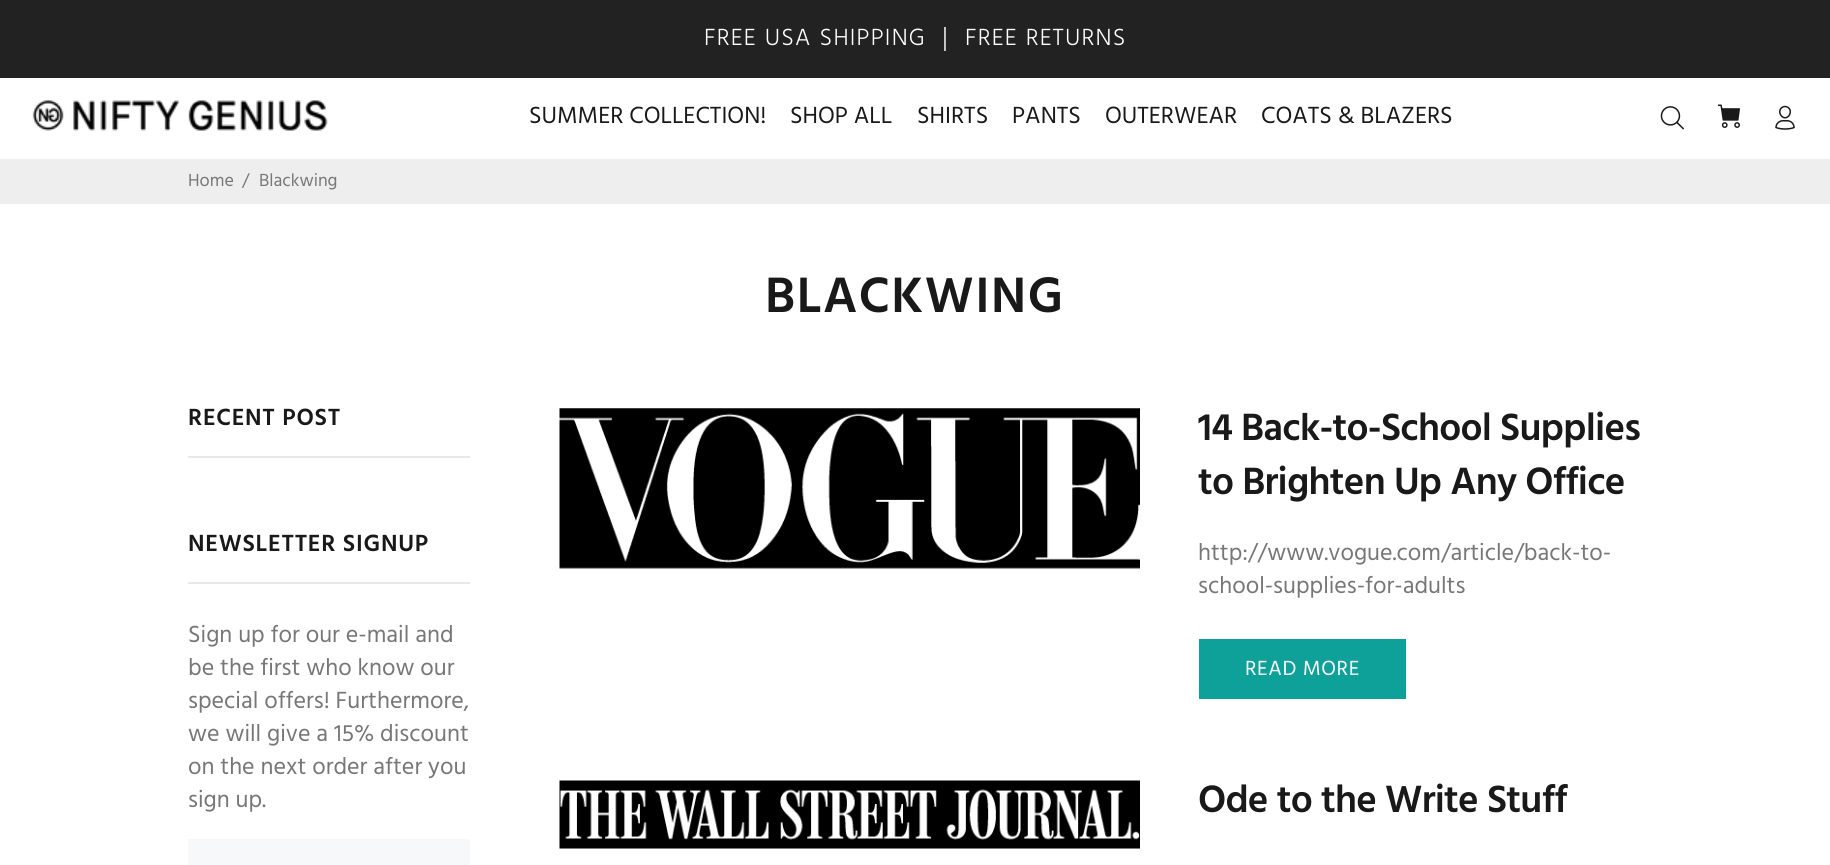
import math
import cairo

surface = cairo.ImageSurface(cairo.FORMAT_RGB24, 1830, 865)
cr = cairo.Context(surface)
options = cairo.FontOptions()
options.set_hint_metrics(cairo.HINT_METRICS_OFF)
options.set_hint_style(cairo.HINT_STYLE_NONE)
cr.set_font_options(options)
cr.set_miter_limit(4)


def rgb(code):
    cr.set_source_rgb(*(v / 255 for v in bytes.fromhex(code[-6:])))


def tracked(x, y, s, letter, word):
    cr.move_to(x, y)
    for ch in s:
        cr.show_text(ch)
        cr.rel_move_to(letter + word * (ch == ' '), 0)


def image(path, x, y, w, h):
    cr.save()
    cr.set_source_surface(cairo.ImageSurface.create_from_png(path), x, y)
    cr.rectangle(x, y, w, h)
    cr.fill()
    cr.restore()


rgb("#ffffff")
cr.paint()
rgb("#222222")
cr.rectangle(0, 0, 1830, 78)
cr.fill()
image("img/1.png", 32, 100, 296, 31)
image("img/2.png", 1660, 106, 24, 24)
image("img/3.png", 1718, 104, 22, 24)
image("img/4.png", 1775, 105, 20, 25)
for x, y, w, h, color in [
    (0, 159, 1830, 45, "#eeeeee"),
    (188, 456, 282, 2, "#e9e7e7"),
    (188, 582, 282, 2, "#e9e7e7"),
    (188, 839, 282, 26, "#f7f8fa"),
]:
    rgb(color)
    cr.rectangle(x, y, w, h)
    cr.fill()
image("img/5.png", 559, 408, 581, 161)
rgb("#0da19a")
cr.rectangle(1199, 639, 207, 60)
cr.fill()
image("img/6.png", 559, 780, 581, 69)
cr.select_font_face("Hind Light")
cr.set_font_size(24)
rgb("#ffffff")
tracked(704, 45, "FREE USA SHIPPING", 1.2, 1)
cr.select_font_face("WenQuanYi Zen Hei Medium")
tracked(933, 45, "｜", 1.2, 0)
cr.select_font_face("Hind Light")
tracked(965, 45, "FREE RETURNS", 1.2, 1)
cr.select_font_face("Hind")
rgb("#191919")
for x, y, s in [
    (529, 123, "SUMMER COLLECTION!"),
    (790, 123, "SHOP ALL"),
    (917, 123, "SHIRTS"),
    (1012, 123, "PANTS"),
    (1105, 123, "OUTERWEAR"),
    (1261, 123, "COATS & BLAZERS"),
]:
    cr.move_to(x, y)
    cr.show_text(s)
cr.set_font_size(18)
rgb("#777777")
for x, y, s in [
    (188, 186, "Home"),
    (242, 186, "/"),
    (259, 186, "Blackwing"),
]:
    cr.move_to(x, y)
    cr.show_text(s)
cr.select_font_face("Hind SemiBold")
cr.set_font_size(51)
rgb("#191919")
tracked(765, 312, "BLACKWING", 1.5, 0)
cr.set_font_size(24)
tracked(188, 425, "RECENT POST", 0.75, 0)
tracked(188, 551, "NEWSLETTER SIGNUP", 0.75, 0)
cr.select_font_face("Hind")
rgb("#777777")
for x, y, s in [
    (188, 642, "Sign up for our e-mail and"),
    (188, 675, "be the first who know our"),
    (188, 708, "special offers! Furthermore,"),
    (188, 741, "we will give a 15% discount"),
    (188, 774, "on the next order after you"),
    (188, 807, "sign up."),
]:
    cr.move_to(x, y)
    cr.show_text(s)
cr.select_font_face("Hind SemiBold")
cr.set_font_size(39)
rgb("#191919")
tracked(1198, 440, "14 Back-to-School Supplies", -0.75, 0)
tracked(1198, 494, "to Brighten Up Any Office", -0.75, 0)
cr.select_font_face("Hind")
cr.set_font_size(24)
rgb("#777777")
cr.move_to(1198, 560)
cr.show_text("http://www.vogue.com/article/back-to-")
cr.move_to(1198, 593)
cr.show_text("school-supplies-for-adults")
cr.set_font_size(21)
rgb("#ffffff")
tracked(1245, 675, "READ MORE", 0.6, 0)
cr.select_font_face("Hind SemiBold")
cr.set_font_size(39)
rgb("#191919")
tracked(1198, 812, "Ode to the Write Stuff", -0.75, 0)
surface.write_to_png("page.png")
